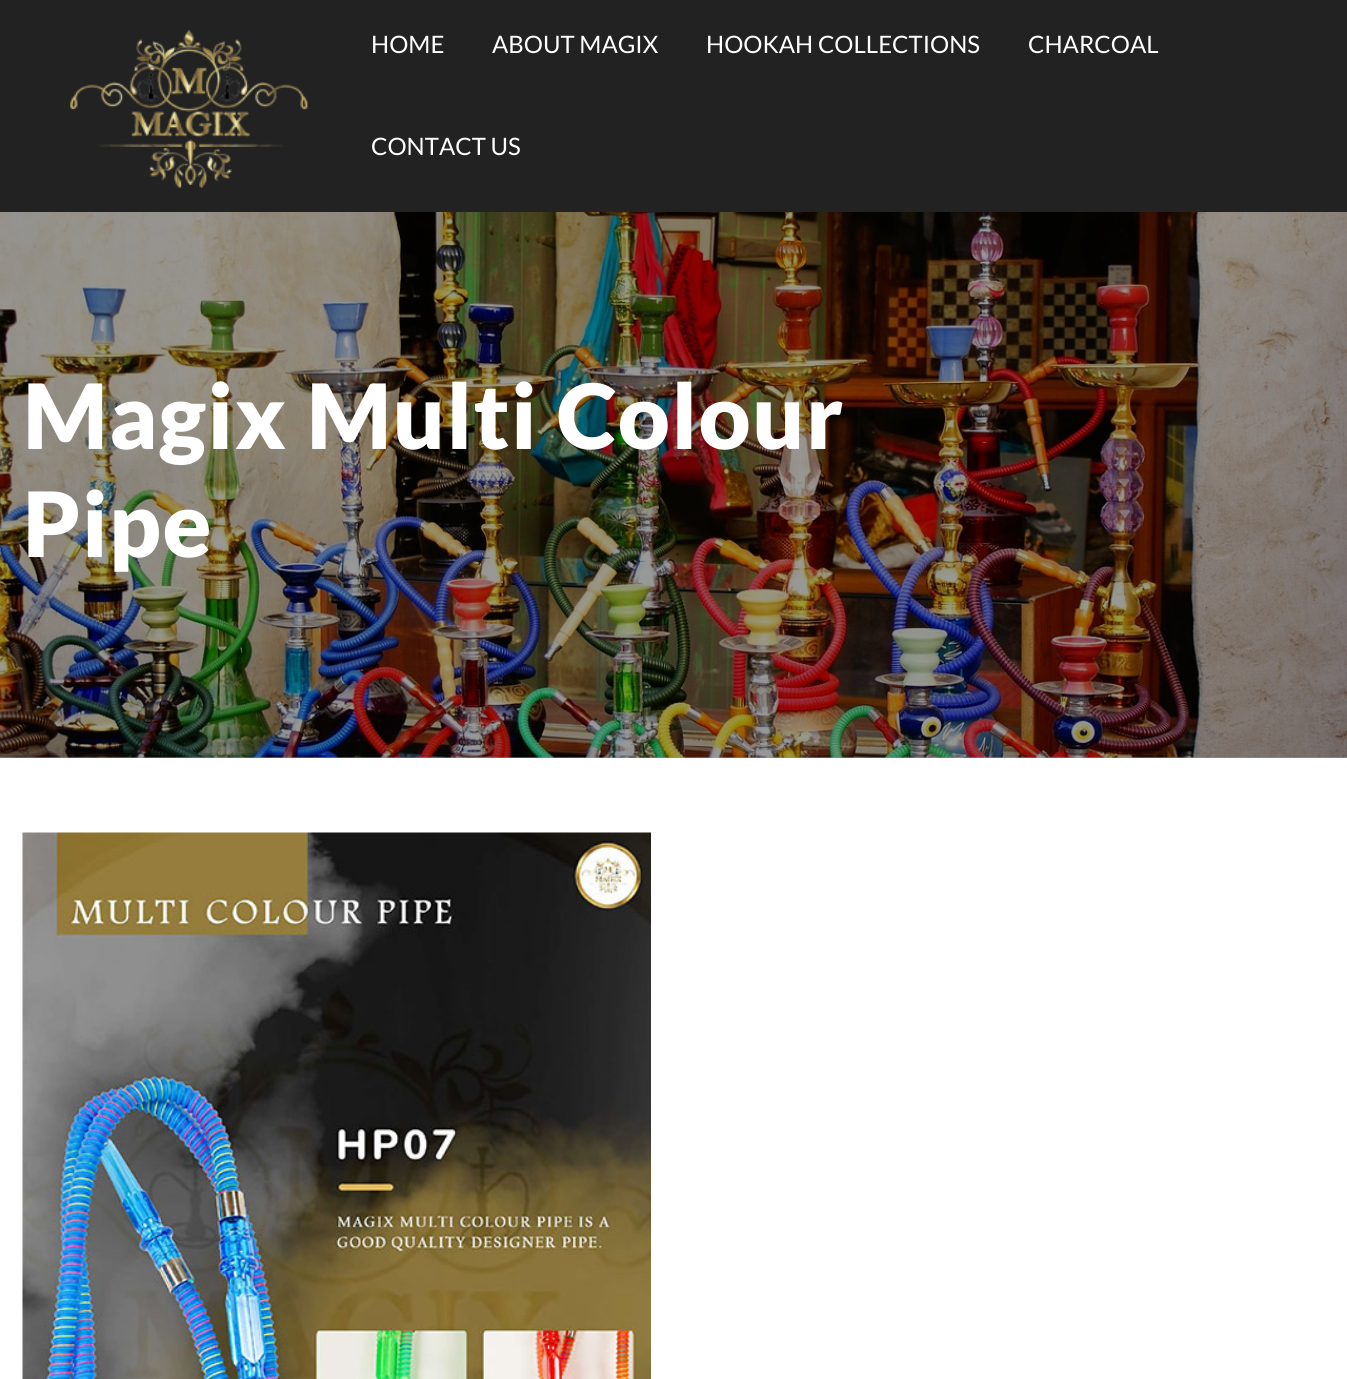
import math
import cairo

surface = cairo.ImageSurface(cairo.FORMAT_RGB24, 1347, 1379)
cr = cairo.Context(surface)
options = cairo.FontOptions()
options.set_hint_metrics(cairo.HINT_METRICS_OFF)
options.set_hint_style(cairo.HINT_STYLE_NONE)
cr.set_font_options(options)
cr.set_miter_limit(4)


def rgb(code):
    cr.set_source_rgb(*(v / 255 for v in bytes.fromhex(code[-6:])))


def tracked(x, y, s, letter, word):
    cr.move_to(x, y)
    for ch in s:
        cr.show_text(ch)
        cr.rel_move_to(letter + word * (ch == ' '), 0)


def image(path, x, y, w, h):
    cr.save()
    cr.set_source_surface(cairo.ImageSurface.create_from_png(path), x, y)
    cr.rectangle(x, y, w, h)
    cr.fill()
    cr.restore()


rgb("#ffffff")
cr.paint()
rgb("#999999")
cr.rectangle(0, 757, 1347, 1)
cr.fill()
rgb("#222222")
cr.rectangle(0, 0, 1347, 212)
cr.fill()
image("img/1.png", 70, 30, 238, 158)
image("img/2.png", 0, 212, 1347, 546)
image("img/3.png", 22, 832, 629, 547)
cr.select_font_face("Lato")
cr.set_font_size(24)
rgb("#ffffff")
for x, y, s in [
    (371, 53, "HOME"),
    (492, 53, "ABOUT MAGIX"),
    (706, 53, "HOOKAH COLLECTIONS"),
    (1028, 53, "CHARCOAL"),
    (371, 155, "CONTACT US"),
]:
    cr.move_to(x, y)
    cr.show_text(s)
cr.select_font_face("Lato Black")
cr.set_font_size(90)
tracked(23, 449, "Magix Multi Colour", 1.5, 0)
tracked(23, 557, "Pipe", 1.5, 0)
surface.write_to_png("page.png")
